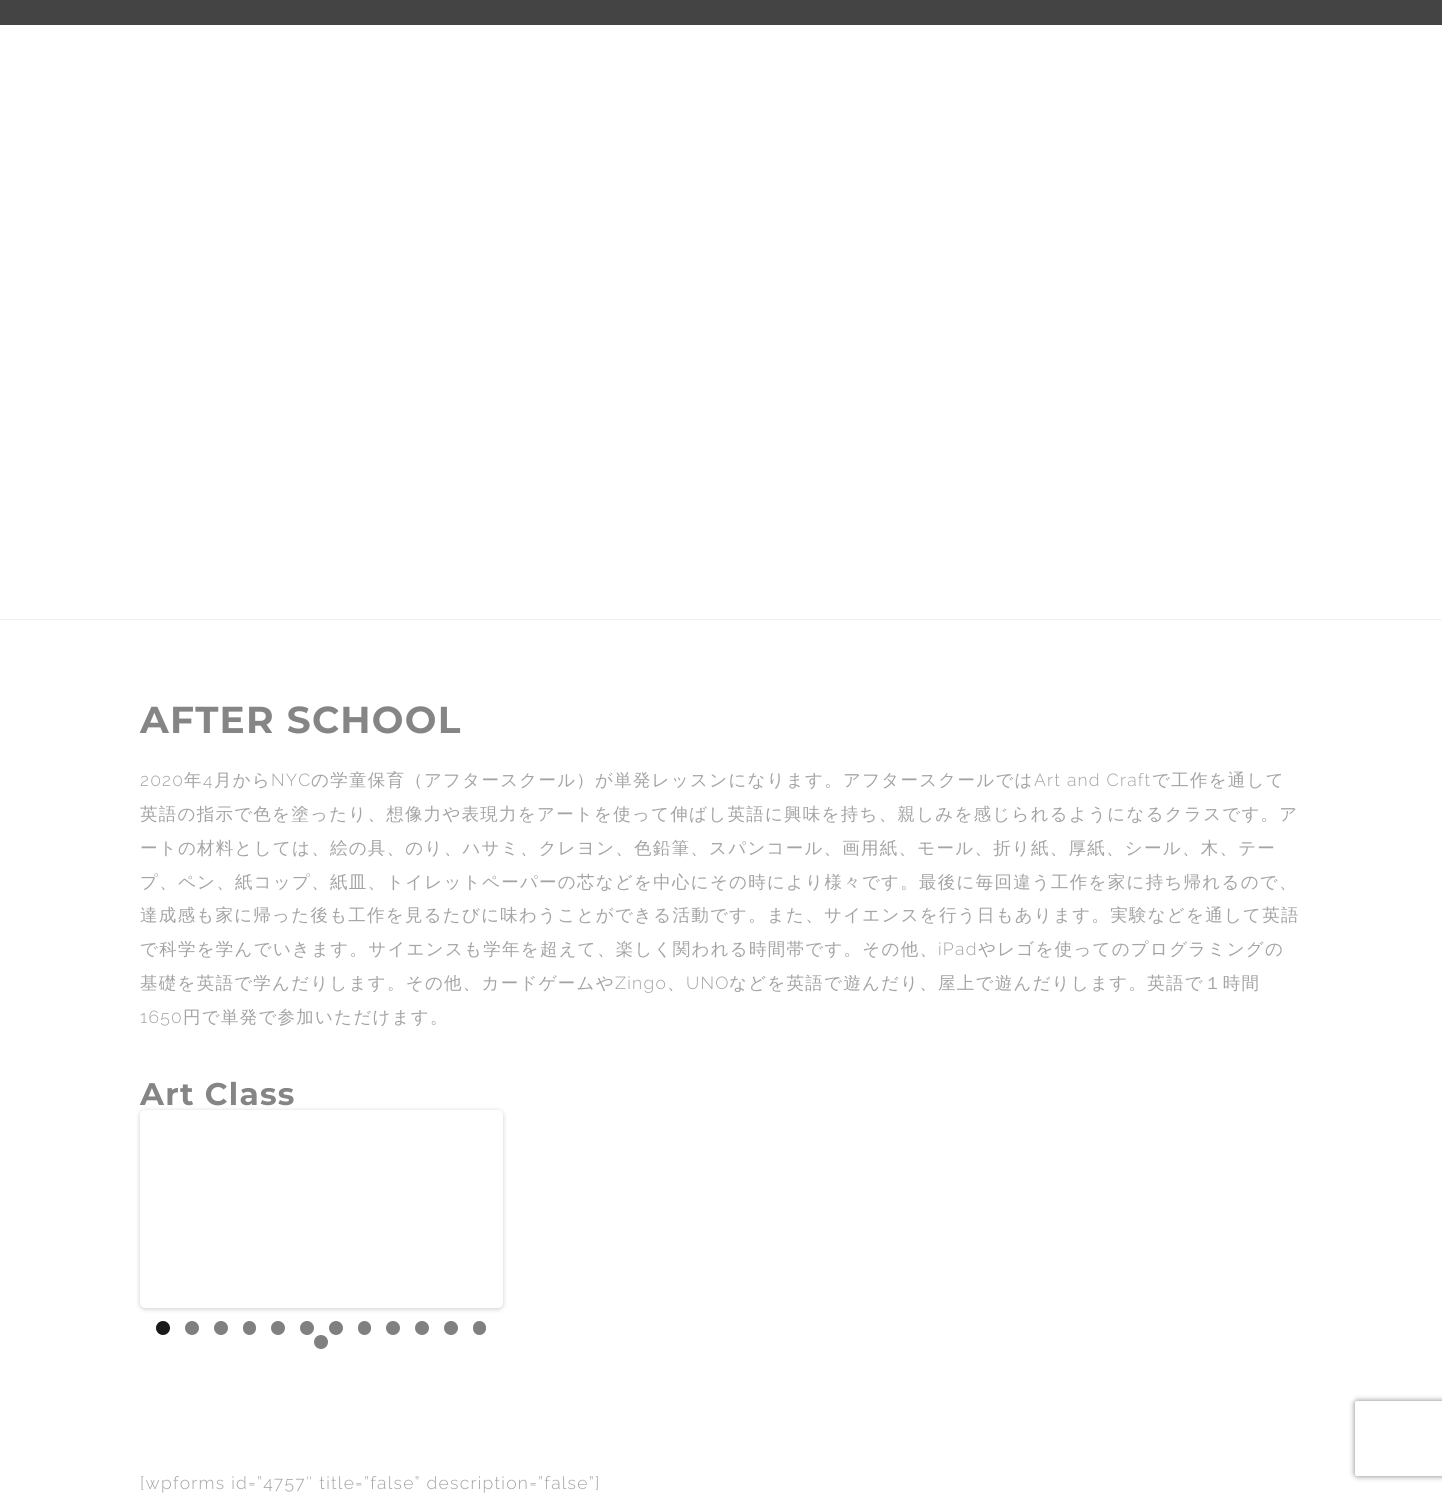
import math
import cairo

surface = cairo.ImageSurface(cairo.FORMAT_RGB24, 1442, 1493)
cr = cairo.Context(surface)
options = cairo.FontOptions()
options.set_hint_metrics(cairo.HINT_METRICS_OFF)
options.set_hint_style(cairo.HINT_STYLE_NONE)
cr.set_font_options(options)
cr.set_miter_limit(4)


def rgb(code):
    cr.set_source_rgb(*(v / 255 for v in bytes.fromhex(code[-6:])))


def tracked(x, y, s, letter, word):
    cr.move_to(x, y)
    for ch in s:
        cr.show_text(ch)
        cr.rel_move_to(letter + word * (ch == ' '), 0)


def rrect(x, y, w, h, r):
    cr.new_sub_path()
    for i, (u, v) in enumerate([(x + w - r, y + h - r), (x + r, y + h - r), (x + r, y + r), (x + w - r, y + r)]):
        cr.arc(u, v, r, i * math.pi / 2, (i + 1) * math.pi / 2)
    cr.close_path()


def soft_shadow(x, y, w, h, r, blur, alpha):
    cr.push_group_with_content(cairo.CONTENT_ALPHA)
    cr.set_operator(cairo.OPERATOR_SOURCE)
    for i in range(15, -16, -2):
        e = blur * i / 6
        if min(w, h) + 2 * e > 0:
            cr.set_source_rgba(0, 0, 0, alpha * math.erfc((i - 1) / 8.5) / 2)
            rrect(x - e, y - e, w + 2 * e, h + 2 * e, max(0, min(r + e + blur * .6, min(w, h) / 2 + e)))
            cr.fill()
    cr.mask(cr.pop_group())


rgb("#ffffff")
cr.paint()
rgb("#444444")
cr.rectangle(0, 0, 1442, 25)
cr.fill()
rgb("#f1f1f1")
cr.rectangle(0, 619, 1442, 1)
cr.fill()
rgb("#000000")
soft_shadow(140, 1111, 363, 198, 5, 2.5, 0.2)
rgb("#ffffff")
rrect(142.5, 1112.5, 358, 193, 2.5)
cr.fill_preserve()
cr.set_line_width(5)
cr.stroke()
rgb("#1a1a1a")
cr.arc(163, 1328, 7, 0, 2 * math.pi)
cr.fill()
rgb("#808080")
cr.arc(192, 1328, 7, 0, 2 * math.pi)
cr.fill()
cr.arc(221, 1328, 7, 0, 2 * math.pi)
cr.fill()
rrect(243, 1321, 13, 14, 6.5)
cr.fill()
cr.arc(278, 1328, 7, 0, 2 * math.pi)
cr.fill()
cr.arc(307, 1328, 7, 0, 2 * math.pi)
cr.fill()
cr.arc(336, 1328, 7, 0, 2 * math.pi)
cr.fill()
rrect(358, 1321, 13, 14, 6.5)
cr.fill()
cr.arc(393, 1328, 7, 0, 2 * math.pi)
cr.fill()
cr.arc(422, 1328, 7, 0, 2 * math.pi)
cr.fill()
cr.arc(451, 1328, 7, 0, 2 * math.pi)
cr.fill()
rrect(473, 1321, 13, 14, 6.5)
cr.fill()
cr.arc(321, 1342, 7, 0, 2 * math.pi)
cr.fill()
cr.save()
cr.set_fill_rule(cairo.FILL_RULE_EVEN_ODD)
cr.new_path()
cr.move_to(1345, 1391)
cr.line_to(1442, 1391)
cr.line_to(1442, 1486)
cr.line_to(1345, 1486)
cr.close_path()
cr.move_to(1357.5, 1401)
cr.line_to(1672.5, 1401)
cr.curve_to(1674, 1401, 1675, 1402, 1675, 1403.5)
cr.line_to(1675, 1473.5)
cr.curve_to(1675, 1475, 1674, 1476, 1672.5, 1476)
cr.line_to(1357.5, 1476)
cr.curve_to(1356, 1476, 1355, 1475, 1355, 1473.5)
cr.line_to(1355, 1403.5)
cr.curve_to(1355, 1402, 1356, 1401, 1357.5, 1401)
cr.close_path()
cr.clip()
rgb("#808080")
soft_shadow(1355, 1401, 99, 75, 2.5, 3, 1)
cr.restore()
cr.select_font_face("Montserrat", cairo.FONT_SLANT_NORMAL, cairo.FONT_WEIGHT_BOLD)
cr.set_font_size(37.5)
rgb("#868585")
tracked(140, 733, "AFTER SCHOOL", 1.25, 0)
cr.select_font_face("Raleway Light")
cr.set_font_size(17.5)
rgb("#a4a4a4")
tracked(140, 786, "2020", 1.25, 0)
cr.select_font_face("WenQuanYi Zen Hei Medium")
tracked(184, 786, "年", 1.25, 0)
cr.select_font_face("Raleway Light")
tracked(203, 786, "4", 1.25, 0)
cr.select_font_face("WenQuanYi Zen Hei Medium")
tracked(214, 786, "月から", 1.25, 0)
cr.select_font_face("Raleway Light")
tracked(271, 786, "NYC", 1.25, 0)
cr.select_font_face("WenQuanYi Zen Hei Medium")
tracked(311, 786, "の学童保育（アフタースクール）が単発レッスンになります。アフタースクールでは", 1.25, 0)
cr.select_font_face("Raleway Light")
tracked(1034, 786, "Art and Craft", 1.25, 0)
cr.select_font_face("WenQuanYi Zen Hei Medium")
for x, y, s in [
    (1152, 786, "で工作を通して"),
    (140, 820, "英語の指示で色を塗ったり、想像力や表現力をアートを使って伸ばし英語に興味を持ち、親しみを感じられるようになるクラスです。ア"),
    (140, 854, "ートの材料としては、絵の具、のり、ハサミ、クレヨン、色鉛筆、スパンコール、画用紙、モール、折り紙、厚紙、シール、木、テー"),
    (140, 888, "プ、ペン、紙コップ、紙皿、トイレットペーパーの芯などを中心にその時により様々です。最後に毎回違う工作を家に持ち帰れるので、"),
    (140, 921, "達成感も家に帰った後も工作を見るたびに味わうことができる活動です。また、サイエンスを行う日もあります。実験などを通して英語"),
    (140, 955, "で科学を学んでいきます。サイエンスも学年を超えて、楽しく関われる時間帯です。その他、"),
]:
    tracked(x, y, s, 1.25, 0)
cr.select_font_face("Raleway Light")
tracked(938, 955, "iPad", 1.25, 0)
cr.select_font_face("WenQuanYi Zen Hei Medium")
tracked(978, 955, "やレゴを使ってのプログラミングの", 1.25, 0)
tracked(140, 989, "基礎を英語で学んだりします。その他、カードゲームや", 1.25, 0)
cr.select_font_face("Raleway Light")
tracked(615, 989, "Zingo", 1.25, 0)
cr.select_font_face("WenQuanYi Zen Hei Medium")
tracked(667, 989, "、", 1.25, 0)
cr.select_font_face("Raleway Light")
tracked(686, 989, "UNO", 1.25, 0)
cr.select_font_face("WenQuanYi Zen Hei Medium")
tracked(729, 989, "などを英語で遊んだり、屋上で遊んだりします。英語で１時間", 1.25, 0)
cr.select_font_face("Raleway Light")
tracked(140, 1023, "1650", 1.25, 0)
cr.select_font_face("WenQuanYi Zen Hei Medium")
tracked(183, 1023, "円で単発で参加いただけます。", 1.25, 0)
cr.select_font_face("Montserrat", cairo.FONT_SLANT_NORMAL, cairo.FONT_WEIGHT_BOLD)
cr.set_font_size(31.25)
rgb("#868585")
tracked(140, 1105, "Art Class", 1.25, 0)
cr.select_font_face("Raleway Light")
cr.set_font_size(17.5)
rgb("#a4a4a4")
tracked(140, 1489, "[wpforms id=”4757″ title=”false” description=”false”]", 1.25, 0)
surface.write_to_png("page.png")
